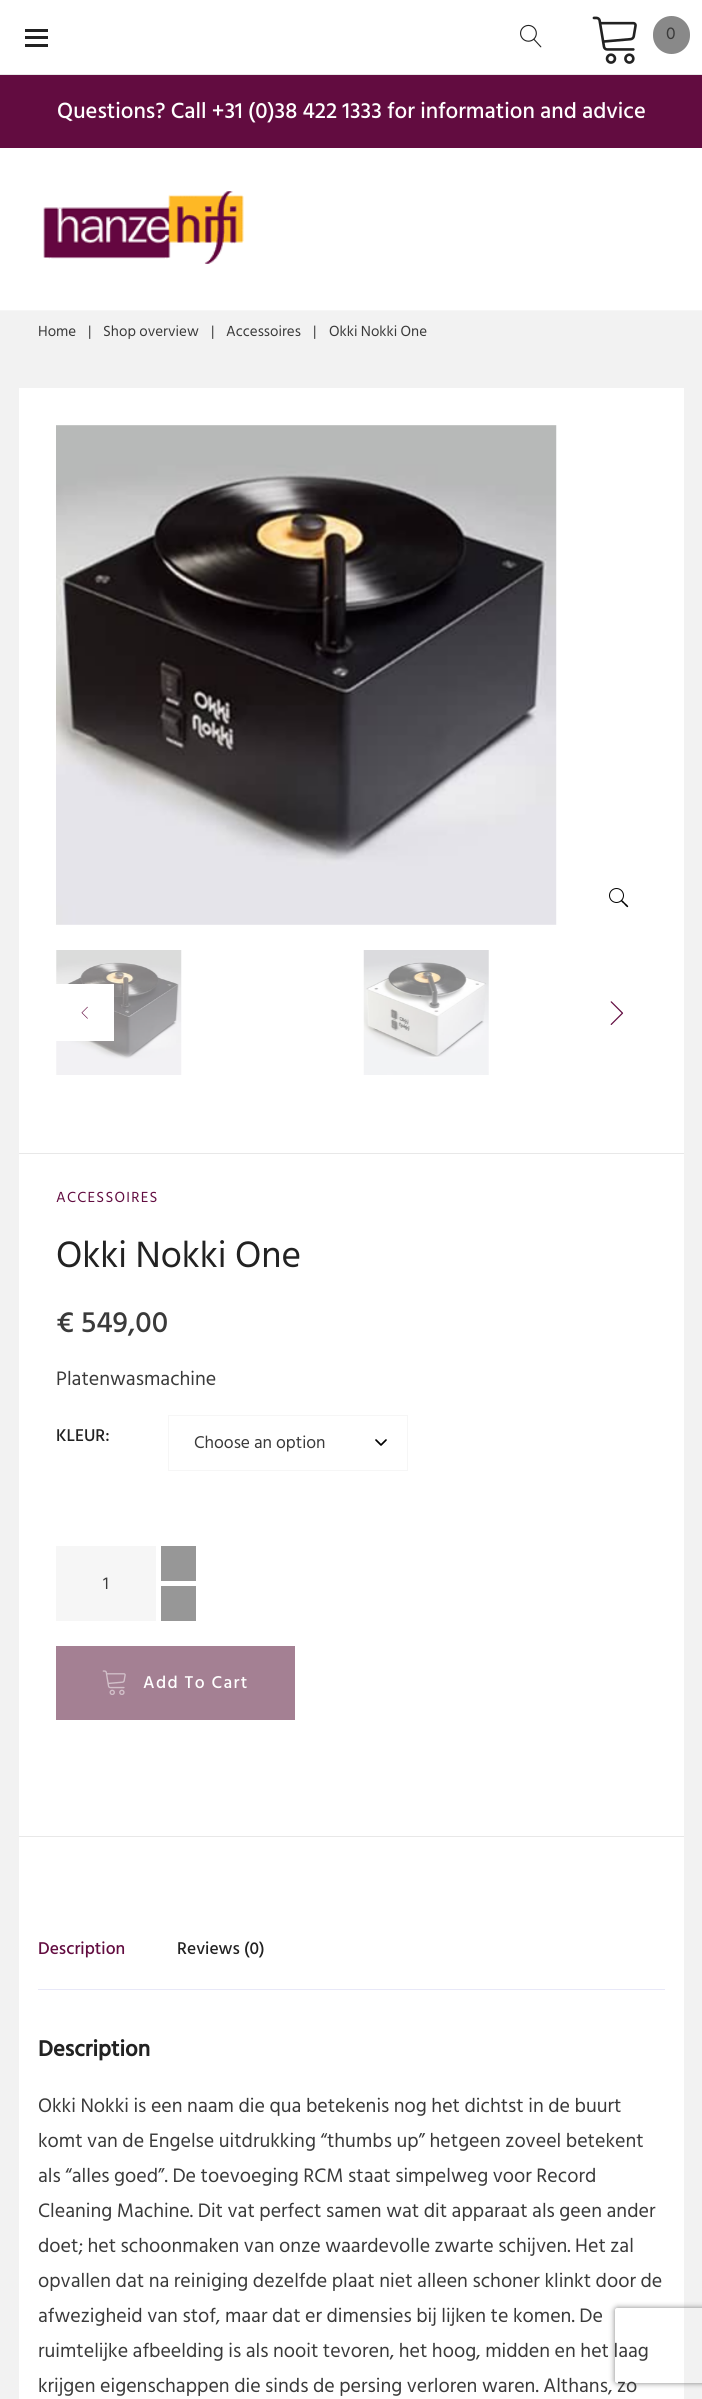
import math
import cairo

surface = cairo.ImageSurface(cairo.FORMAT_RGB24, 702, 2399)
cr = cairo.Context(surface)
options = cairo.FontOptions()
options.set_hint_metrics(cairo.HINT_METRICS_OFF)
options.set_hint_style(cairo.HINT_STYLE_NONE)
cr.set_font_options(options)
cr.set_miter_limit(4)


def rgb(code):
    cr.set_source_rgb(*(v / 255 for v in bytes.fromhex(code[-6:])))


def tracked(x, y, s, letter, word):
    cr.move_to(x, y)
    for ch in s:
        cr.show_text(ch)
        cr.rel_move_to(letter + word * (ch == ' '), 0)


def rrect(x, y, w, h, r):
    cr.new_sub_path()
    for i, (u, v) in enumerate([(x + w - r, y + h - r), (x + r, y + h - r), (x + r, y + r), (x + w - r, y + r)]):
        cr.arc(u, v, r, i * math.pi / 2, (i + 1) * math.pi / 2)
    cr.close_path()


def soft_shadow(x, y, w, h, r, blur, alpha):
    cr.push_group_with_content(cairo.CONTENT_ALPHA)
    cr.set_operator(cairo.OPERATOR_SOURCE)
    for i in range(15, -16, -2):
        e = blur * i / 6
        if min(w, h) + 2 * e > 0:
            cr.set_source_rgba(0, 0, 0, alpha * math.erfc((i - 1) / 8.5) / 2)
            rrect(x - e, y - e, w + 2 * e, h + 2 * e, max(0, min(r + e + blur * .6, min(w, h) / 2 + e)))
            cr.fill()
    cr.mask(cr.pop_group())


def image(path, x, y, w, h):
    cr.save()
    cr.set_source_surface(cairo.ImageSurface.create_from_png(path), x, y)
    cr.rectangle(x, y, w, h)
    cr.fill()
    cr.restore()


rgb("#f2f2f2")
cr.paint()
for x, y, w, h, color in [
    (0, 0, 702, 74, "#ffffff"),
    (0, 74, 702, 1, "#e8e8e8"),
    (25, 36, 23, 3, "#222222"),
    (25, 29, 23, 3, "#222222"),
    (25, 44, 23, 3, "#222222"),
]:
    rgb(color)
    cr.rectangle(x, y, w, h)
    cr.fill()
image("img/1.png", 520, 24, 22, 24)
image("img/2.png", 592, 16, 45, 48)
rgb("#898989")
rrect(653, 16, 37, 38, 18.5)
cr.fill()
for x, y, w, h, color in [
    (0, 75, 702, 73, "#620c40"),
    (0, 148, 702, 162, "#ffffff"),
    (0, 310, 702, 1, "#f6f6f6"),
]:
    rgb(color)
    cr.rectangle(x, y, w, h)
    cr.fill()
image("img/3.png", 43, 191, 201, 73)
rgb("#ffffff")
cr.rectangle(19, 388, 665, 2011)
cr.fill()
rgb("#e8e8e8")
cr.rectangle(19, 1153, 665, 1)
cr.fill()
image("img/4.png", 56, 425, 501, 500)
cr.arc(616.5, 895.5, 7, 0, 2 * math.pi)
rgb("#000000")
cr.set_line_width(1)
cr.stroke()
cr.new_path()
cr.move_to(621, 900)
cr.curve_to(621.5, 899, 624.5, 902.5, 625, 903)
cr.curve_to(625.5, 903.5, 629, 906, 628, 907)
cr.curve_to(627, 908, 624.5, 904.5, 624, 904)
cr.curve_to(623.5, 903.5, 620, 901, 621, 900)
cr.close_path()
cr.fill()
image("img/5.png", 56, 950, 126, 125)
image("img/6.png", 363, 950, 126, 125)
rgb("#ffffff")
cr.rectangle(56, 984, 58, 57)
cr.fill()
image("img/7.png", 81, 1006, 7, 13)
image("img/8.png", 610, 1001, 14, 24)
rgb("#e8e8e8")
cr.rectangle(19, 1836, 665, 1)
cr.fill()
cr.new_path()
cr.move_to(376, 1440)
cr.line_to(381, 1445)
cr.line_to(386, 1440)
rgb("#000000")
cr.set_line_width(1.7)
cr.set_line_cap(cairo.LINE_CAP_ROUND)
cr.set_line_join(cairo.LINE_JOIN_ROUND)
cr.stroke()
cr.rectangle(168.5, 1415.5, 239, 55)
rgb("#f6f6f6")
cr.set_line_width(1)
cr.set_line_cap(cairo.LINE_CAP_BUTT)
cr.set_line_join(cairo.LINE_JOIN_MITER)
cr.stroke()
for x, y, w, h, color in [
    (161, 1546, 35, 35, "#979797"),
    (56, 1546, 100, 75, "#f6f6f6"),
    (161, 1586, 35, 35, "#979797"),
    (56, 1646, 239, 74, "#a48093"),
]:
    rgb(color)
    cr.rectangle(x, y, w, h)
    cr.fill()
image("img/9.png", 102, 1670, 24, 25)
rgb("#e8e8f8")
cr.rectangle(38, 1989, 627, 1)
cr.fill()
cr.save()
cr.set_fill_rule(cairo.FILL_RULE_EVEN_ODD)
cr.new_path()
cr.move_to(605, 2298)
cr.line_to(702, 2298)
cr.line_to(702, 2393)
cr.line_to(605, 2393)
cr.close_path()
cr.move_to(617.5, 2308)
cr.line_to(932.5, 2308)
cr.curve_to(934, 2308, 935, 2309, 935, 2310.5)
cr.line_to(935, 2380.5)
cr.curve_to(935, 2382, 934, 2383, 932.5, 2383)
cr.line_to(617.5, 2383)
cr.curve_to(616, 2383, 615, 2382, 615, 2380.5)
cr.line_to(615, 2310.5)
cr.curve_to(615, 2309, 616, 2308, 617.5, 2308)
cr.close_path()
cr.clip()
rgb("#808080")
soft_shadow(615, 2308, 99, 75, 2.5, 3, 1)
cr.restore()
cr.select_font_face("Hind Siliguri")
cr.set_font_size(17.5)
rgb("#3a3a3a")
cr.move_to(666, 39)
cr.show_text("0")
cr.select_font_face("Hind Siliguri Medium")
cr.set_font_size(22.5)
rgb("#ffffff")
cr.move_to(57, 118)
cr.show_text("Questions? Call +31 (0)38 422 1333 for information and advice")
cr.select_font_face("Hind Siliguri")
cr.set_font_size(15)
rgb("#3a3a3a")
for x, y, s in [
    (38, 336, "Home"),
    (88, 336, "|"),
    (103, 336, "Shop overview"),
    (211, 336, "|"),
    (226, 336, "Accessoires"),
    (313, 336, "|"),
    (329, 336, "Okki Nokki One"),
]:
    cr.move_to(x, y)
    cr.show_text(s)
rgb("#620c40")
tracked(56, 1202, "ACCESSOIRES", 1.25, 0)
cr.set_font_size(37.5)
rgb("#222222")
cr.move_to(56, 1267)
cr.show_text("Okki Nokki One")
cr.select_font_face("Hind Siliguri Medium")
cr.set_font_size(30)
rgb("#3a3a3a")
cr.move_to(56, 1332)
cr.show_text("€ 549,00")
cr.select_font_face("Hind Siliguri")
cr.set_font_size(20)
cr.move_to(56, 1385)
cr.show_text("Platenwasmachine")
cr.select_font_face("Hind Siliguri Medium")
cr.set_font_size(17.5)
rgb("#222222")
cr.move_to(56, 1441)
cr.show_text("KLEUR:")
cr.select_font_face("Hind Siliguri")
rgb("#3a3a3a")
cr.move_to(194, 1448)
cr.show_text("Choose an option")
cr.move_to(103, 1589)
cr.show_text("1")
cr.select_font_face("Hind Siliguri Medium")
rgb("#ffffff")
tracked(143, 1688, "Add To Cart", 1.4, 0)
rgb("#620c40")
cr.move_to(38, 1954)
cr.show_text("Description")
rgb("#222222")
cr.move_to(177, 1954)
cr.show_text("Reviews (0)")
cr.select_font_face("Hind Siliguri", cairo.FONT_SLANT_NORMAL, cairo.FONT_WEIGHT_BOLD)
cr.set_font_size(22.5)
cr.move_to(38, 2056)
cr.show_text("Description")
cr.select_font_face("Hind Siliguri")
cr.set_font_size(20)
rgb("#3a3a3a")
for x, y, s in [
    (38, 2112, "Okki Nokki is een naam die qua betekenis nog het dichtst in de buurt"),
    (38, 2147, "komt van de Engelse uitdrukking “thumbs up” hetgeen zoveel betekent"),
    (38, 2182, "als “alles goed”. De toevoeging RCM staat simpelweg voor Record"),
    (38, 2217, "Cleaning Machine. Dit vat perfect samen wat dit apparaat als geen ander"),
    (38, 2252, "doet; het schoonmaken van onze waardevolle zwarte schijven. Het zal"),
    (38, 2287, "opvallen dat na reiniging dezelfde plaat niet alleen schoner klinkt door de"),
    (38, 2322, "afwezigheid van stof, maar dat er dimensies bij lijken te komen. De"),
    (38, 2357, "ruimtelijke afbeelding is als nooit tevoren, het hoog, midden en het laag"),
    (38, 2392, "krijgen eigenschappen die sinds de persing verloren waren. Althans, zo"),
]:
    cr.move_to(x, y)
    cr.show_text(s)
surface.write_to_png("page.png")
